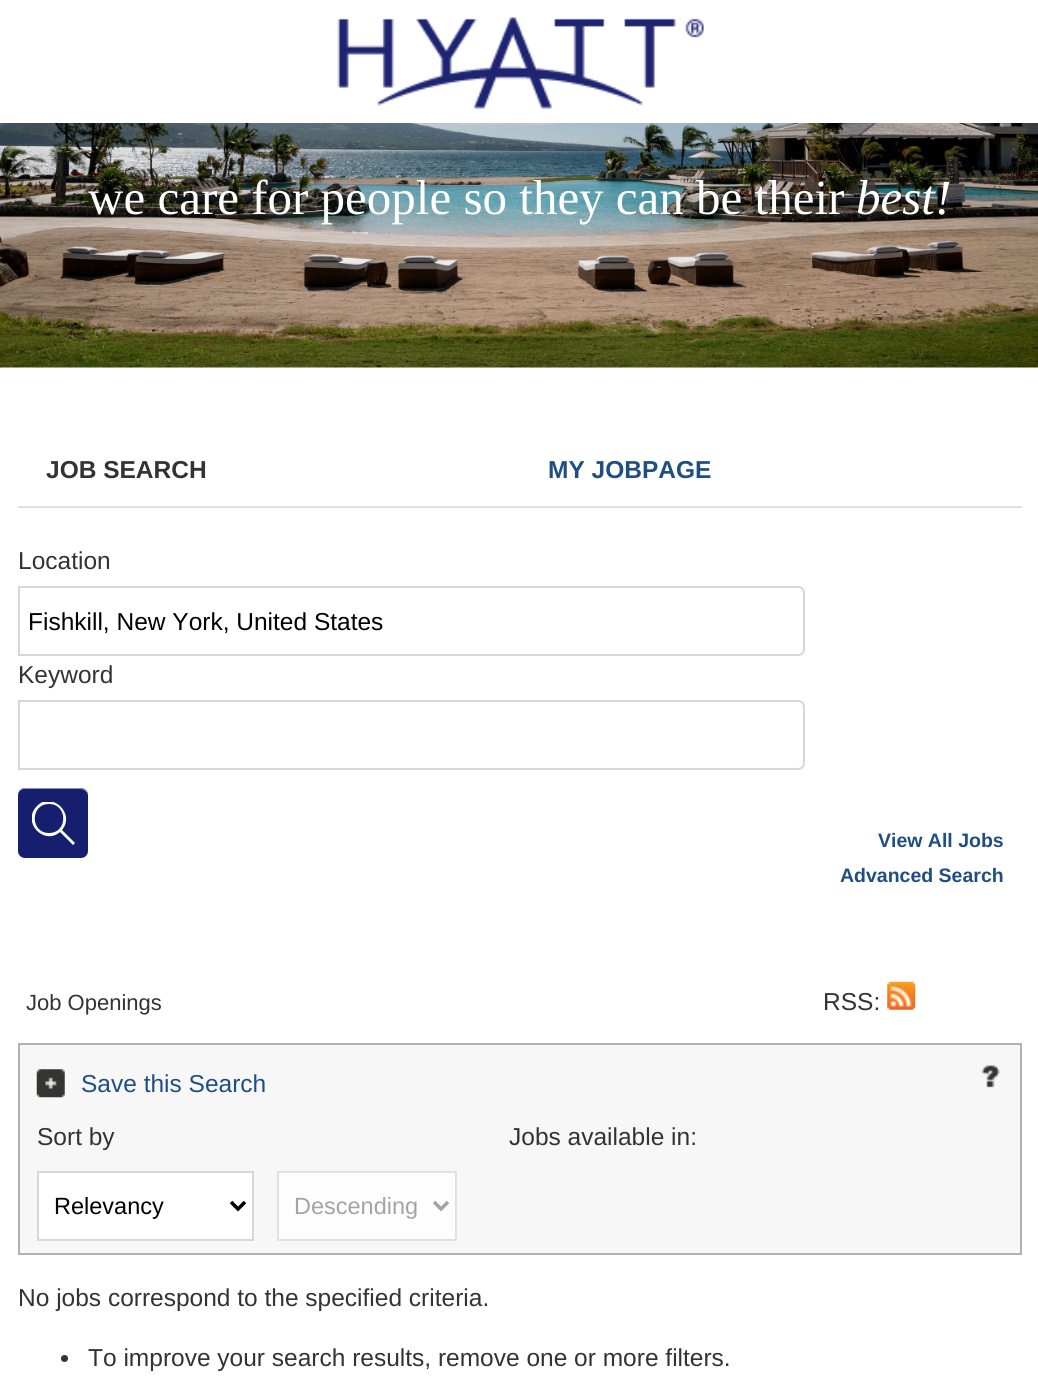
import math
import cairo

surface = cairo.ImageSurface(cairo.FORMAT_RGB24, 1038, 1398)
cr = cairo.Context(surface)
options = cairo.FontOptions()
options.set_hint_metrics(cairo.HINT_METRICS_OFF)
options.set_hint_style(cairo.HINT_STYLE_NONE)
cr.set_font_options(options)
cr.set_miter_limit(4)


def rgb(code):
    cr.set_source_rgb(*(v / 255 for v in bytes.fromhex(code[-6:])))


def rrect(x, y, w, h, r):
    cr.new_sub_path()
    for i, (u, v) in enumerate([(x + w - r, y + h - r), (x + r, y + h - r), (x + r, y + r), (x + w - r, y + r)]):
        cr.arc(u, v, r, i * math.pi / 2, (i + 1) * math.pi / 2)
    cr.close_path()


def image(path, x, y, w, h):
    cr.save()
    cr.set_source_surface(cairo.ImageSurface.create_from_png(path), x, y)
    cr.rectangle(x, y, w, h)
    cr.fill()
    cr.restore()


rgb("#ffffff")
cr.paint()
image("img/1.png", 337, 17, 367, 92)
image("img/2.png", 0, 123, 1038, 245)
rgb("#e0e0e0")
cr.rectangle(18, 506, 1004, 2)
cr.fill()
cr.new_path()
cr.move_to(19, 587)
cr.line_to(798, 587)
cr.curve_to(801.5, 587, 804, 589.5, 804, 593)
cr.line_to(804, 649)
cr.curve_to(804, 652.5, 801.5, 655, 798, 655)
cr.line_to(19, 655)
cr.close_path()
rgb("#d7d7d7")
cr.stroke()
cr.new_path()
cr.move_to(19, 701)
cr.line_to(798, 701)
cr.curve_to(801.5, 701, 804, 703.5, 804, 707)
cr.line_to(804, 763)
cr.curve_to(804, 766.5, 801.5, 769, 798, 769)
cr.line_to(19, 769)
cr.close_path()
cr.stroke()
rgb("#151f6d")
rrect(18, 788, 70, 70, 7)
cr.fill()
cr.save()
cr.rectangle(32, 802, 43, 43)
cr.clip()
rgb("#ffffff")
cr.new_path()
cr.move_to(49, 833)
cr.curve_to(30, 833, 30, 804, 49, 804)
cr.curve_to(68, 804, 68, 833, 49, 833)
cr.close_path()
cr.move_to(75, 843)
cr.line_to(62, 830)
cr.curve_to(76, 813, 51, 791, 37, 806)
cr.curve_to(21, 822, 44, 846, 60, 832)
cr.line_to(73, 845)
cr.close_path()
cr.fill()
cr.restore()
cr.set_source_rgba(1, 1, 1, 0.5)
cr.new_path()
cr.move_to(24, 789)
cr.line_to(80, 789)
cr.curve_to(84, 789, 88, 792, 88, 796)
cr.curve_to(88, 786, 79, 788, 72, 788)
cr.line_to(34, 788)
cr.curve_to(27, 788, 18, 786, 18, 796)
cr.curve_to(18, 792, 21, 789, 24, 789)
cr.close_path()
cr.fill()
image("img/3.png", 887, 981, 29, 29)
rgb("#f7f7f7")
cr.rectangle(19, 1044, 1002, 210)
cr.fill_preserve()
rgb("#b2b1b2")
cr.stroke()
image("img/4.png", 36, 1069, 29, 29)
image("img/5.png", 981, 1065, 19, 23)
rgb("#ffffff")
cr.rectangle(38, 1172, 215, 68)
cr.fill_preserve()
rgb("#d7d7d7")
cr.stroke()
cr.new_path()
cr.move_to(231, 1202)
cr.line_to(238, 1209)
cr.line_to(245, 1202)
rgb("#000000")
cr.set_line_width(3.5)
cr.stroke()
rgb("#fdfdfd")
cr.rectangle(278, 1172, 178, 68)
cr.fill_preserve()
rgb("#e1e1e1")
cr.set_line_width(2)
cr.stroke()
cr.new_path()
cr.move_to(434, 1202)
cr.line_to(441, 1209)
cr.line_to(448, 1202)
rgb("#a4a4a4")
cr.set_line_width(3.5)
cr.stroke()
rgb("#333333")
cr.arc(64.5, 1358.5, 3.5, 0, 2 * math.pi)
cr.fill()
cr.select_font_face("Liberation Serif")
cr.set_font_size(49)
rgb("#ffffff")
cr.move_to(88, 214)
cr.show_text("we care for people so they can be their")
cr.select_font_face("Liberation Serif", cairo.FONT_SLANT_ITALIC)
cr.move_to(856, 214)
cr.show_text("best!")
cr.select_font_face("Liberation Sans", cairo.FONT_SLANT_NORMAL, cairo.FONT_WEIGHT_BOLD)
cr.set_font_size(24.5)
rgb("#333333")
cr.move_to(46, 478)
cr.show_text("JOB SEARCH")
rgb("#1f4f82")
cr.move_to(548, 478)
cr.show_text("MY JOBPAGE")
cr.select_font_face("Liberation Sans")
rgb("#333333")
cr.move_to(18, 569)
cr.show_text("Location")
rgb("#000000")
cr.move_to(28, 630)
cr.show_text("Fishkill, New York, United States")
rgb("#333333")
cr.move_to(18, 683)
cr.show_text("Keyword")
cr.select_font_face("Liberation Sans", cairo.FONT_SLANT_NORMAL, cairo.FONT_WEIGHT_BOLD)
cr.set_font_size(19.5)
rgb("#1f4f82")
cr.move_to(878, 847)
cr.show_text("View All Jobs")
cr.move_to(840, 882)
cr.show_text("Advanced Search")
cr.select_font_face("Liberation Sans")
cr.set_font_size(22)
rgb("#333333")
cr.move_to(26, 1010)
cr.show_text("Job Openings")
cr.set_font_size(24.5)
cr.move_to(823, 1010)
cr.show_text("RSS:")
rgb("#1f4f82")
cr.move_to(81, 1092)
cr.show_text("Save this Search")
rgb("#333333")
cr.move_to(37, 1145)
cr.show_text("Sort by")
cr.set_font_size(23.5)
rgb("#000000")
cr.move_to(54, 1214)
cr.show_text("Relevancy")
rgb("#a4a4a4")
cr.move_to(294, 1214)
cr.show_text("Descending")
cr.set_font_size(24.5)
rgb("#333333")
for x, y, s in [
    (509, 1145, "Jobs available in:"),
    (18, 1306, "No jobs correspond to the specified criteria."),
    (88, 1366, "To improve your search results, remove one or more filters."),
]:
    cr.move_to(x, y)
    cr.show_text(s)
surface.write_to_png("page.png")
